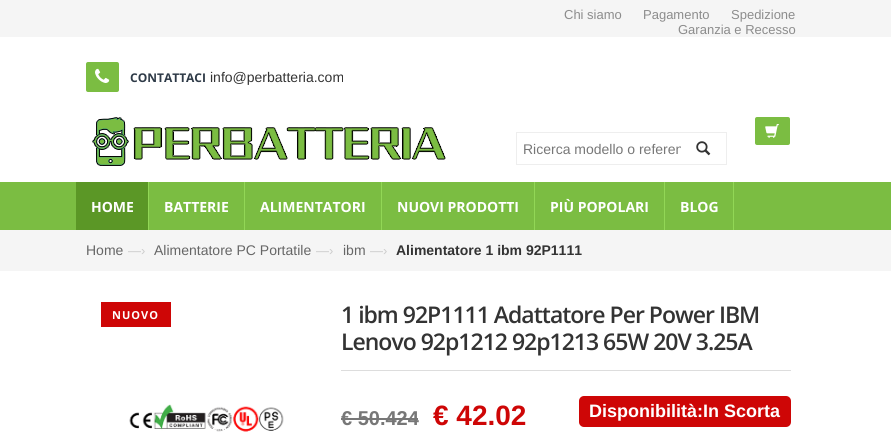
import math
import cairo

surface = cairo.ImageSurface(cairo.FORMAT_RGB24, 891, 437)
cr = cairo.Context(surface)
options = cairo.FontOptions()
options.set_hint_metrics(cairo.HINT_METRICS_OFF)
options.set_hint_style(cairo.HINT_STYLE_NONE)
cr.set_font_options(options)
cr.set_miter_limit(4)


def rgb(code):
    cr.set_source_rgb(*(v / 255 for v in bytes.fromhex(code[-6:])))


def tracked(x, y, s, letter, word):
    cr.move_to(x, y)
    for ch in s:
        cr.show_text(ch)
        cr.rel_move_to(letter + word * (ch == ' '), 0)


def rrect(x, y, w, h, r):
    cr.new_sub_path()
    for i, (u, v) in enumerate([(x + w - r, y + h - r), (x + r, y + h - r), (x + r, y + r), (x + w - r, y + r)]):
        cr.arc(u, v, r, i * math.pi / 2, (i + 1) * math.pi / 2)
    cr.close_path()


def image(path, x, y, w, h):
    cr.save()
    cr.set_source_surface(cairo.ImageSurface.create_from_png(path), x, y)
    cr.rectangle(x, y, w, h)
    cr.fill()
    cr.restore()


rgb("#ffffff")
cr.paint()
rgb("#f5f5f5")
cr.rectangle(0, 0, 891, 37)
cr.fill()
rgb("#7bbd42")
rrect(86, 62, 33, 30, 2)
cr.fill()
image("img/1.png", 95, 68, 15, 15)
image("img/2.png", 92, 117, 354, 49)
rrect(755, 117, 35, 28, 2)
cr.fill()
image("img/3.png", 765, 124, 14, 14)
cr.rectangle(0, 182, 891, 48)
cr.fill()
cr.rectangle(516.5, 132.5, 171, 32)
rgb("#eeeeee")
cr.set_line_width(1)
cr.stroke()
for x, y, w, h, color in [
    (687, 133, 1, 31, "#ffffff"),
    (684, 132, 43, 1, "#eeeeee"),
    (726, 132, 1, 33, "#eeeeee"),
    (684, 164, 43, 1, "#eeeeee"),
]:
    rgb(color)
    cr.rectangle(x, y, w, h)
    cr.fill()
image("img/4.png", 696, 141, 15, 15)
for x, y, w, h, color in [
    (76, 182, 72, 48, "#5b9726"),
    (148, 182, 1, 48, "#92d756"),
    (244, 182, 1, 48, "#92d756"),
    (381, 182, 1, 48, "#92d756"),
    (534, 182, 1, 48, "#92d756"),
    (664, 182, 1, 48, "#92d756"),
    (733, 182, 1, 48, "#92d756"),
    (0, 230, 891, 41, "#f5f5f5"),
    (101, 302, 70, 25, "#ce0606"),
]:
    rgb(color)
    cr.rectangle(x, y, w, h)
    cr.fill()
image("img/5.png", 129, 404, 155, 28)
rgb("#dddddd")
cr.rectangle(341, 370, 450, 1)
cr.fill()
rgb("#777777")
cr.rectangle(341, 418, 77, 2)
cr.fill()
rgb("#ce0606")
rrect(579, 396, 212, 31, 5)
cr.fill()
cr.select_font_face("Liberation Sans")
cr.set_font_size(13)
rgb("#8c8c8c")
for x, y, s in [
    (564, 19, "Chi siamo"),
    (643, 19, "Pagamento"),
    (731, 19, "Spedizione"),
    (678, 34, "Garanzia e Recesso"),
]:
    cr.move_to(x, y)
    cr.show_text(s)
cr.select_font_face("Open Sans", cairo.FONT_SLANT_NORMAL, cairo.FONT_WEIGHT_BOLD)
cr.set_font_size(12)
rgb("#2e3a47")
cr.move_to(130, 82)
cr.show_text("CONTATTACI")
cr.select_font_face("Liberation Sans")
cr.set_font_size(14)
rgb("#333333")
cr.move_to(210, 82)
cr.show_text("info@perbatteria.com")
cr.save()
cr.rectangle(523, 141, 158, 16)
cr.clip()
rgb("#777777")
cr.move_to(523, 154)
cr.show_text("Ricerca modello o referen")
cr.restore()
cr.select_font_face("Open Sans", cairo.FONT_SLANT_NORMAL, cairo.FONT_WEIGHT_BOLD)
rgb("#ffffff")
for x, y, s in [
    (91, 212, "HOME"),
    (164, 212, "BATTERIE"),
    (260, 212, "ALIMENTATORI"),
    (397, 212, "NUOVI PRODOTTI"),
    (550, 212, "PIÙ POPOLARI"),
    (680, 212, "BLOG"),
]:
    cr.move_to(x, y)
    cr.show_text(s)
cr.select_font_face("Liberation Sans")
rgb("#666666")
cr.move_to(86, 255)
cr.show_text("Home")
cr.set_font_size(13)
rgb("#cccccc")
cr.move_to(128, 255)
cr.show_text("—›")
cr.set_font_size(14)
rgb("#666666")
cr.move_to(154, 255)
cr.show_text("Alimentatore PC Portatile")
cr.set_font_size(13)
rgb("#cccccc")
cr.move_to(316, 255)
cr.show_text("—›")
cr.set_font_size(14)
rgb("#666666")
cr.move_to(343, 255)
cr.show_text("ibm")
cr.set_font_size(13)
rgb("#cccccc")
cr.move_to(370, 255)
cr.show_text("—›")
cr.select_font_face("Liberation Sans", cairo.FONT_SLANT_NORMAL, cairo.FONT_WEIGHT_BOLD)
cr.set_font_size(14)
rgb("#333333")
cr.move_to(396, 255)
cr.show_text("Alimentatore 1 ibm 92P1111")
cr.select_font_face("Open Sans", cairo.FONT_SLANT_NORMAL, cairo.FONT_WEIGHT_BOLD)
cr.set_font_size(11)
rgb("#ffffff")
tracked(112, 319, "NUOVO", 1, 0)
cr.select_font_face("Open Sans SemiBold")
cr.set_font_size(23)
rgb("#333333")
tracked(341, 323, "1 ibm 92P1111 Adattatore Per Power IBM", -1, 0)
tracked(341, 350, "Lenovo 92p1212 92p1213 65W 20V 3.25A", -1, 0)
cr.select_font_face("Liberation Sans", cairo.FONT_SLANT_NORMAL, cairo.FONT_WEIGHT_BOLD)
cr.set_font_size(20)
rgb("#777777")
cr.move_to(341, 425)
cr.show_text("€ 50.424")
cr.set_font_size(28)
rgb("#ce0606")
cr.move_to(433, 425)
cr.show_text("€ 42.02")
cr.set_font_size(18)
rgb("#ffffff")
cr.move_to(589, 417)
cr.show_text("Disponibilità:In Scorta")
surface.write_to_png("page.png")
